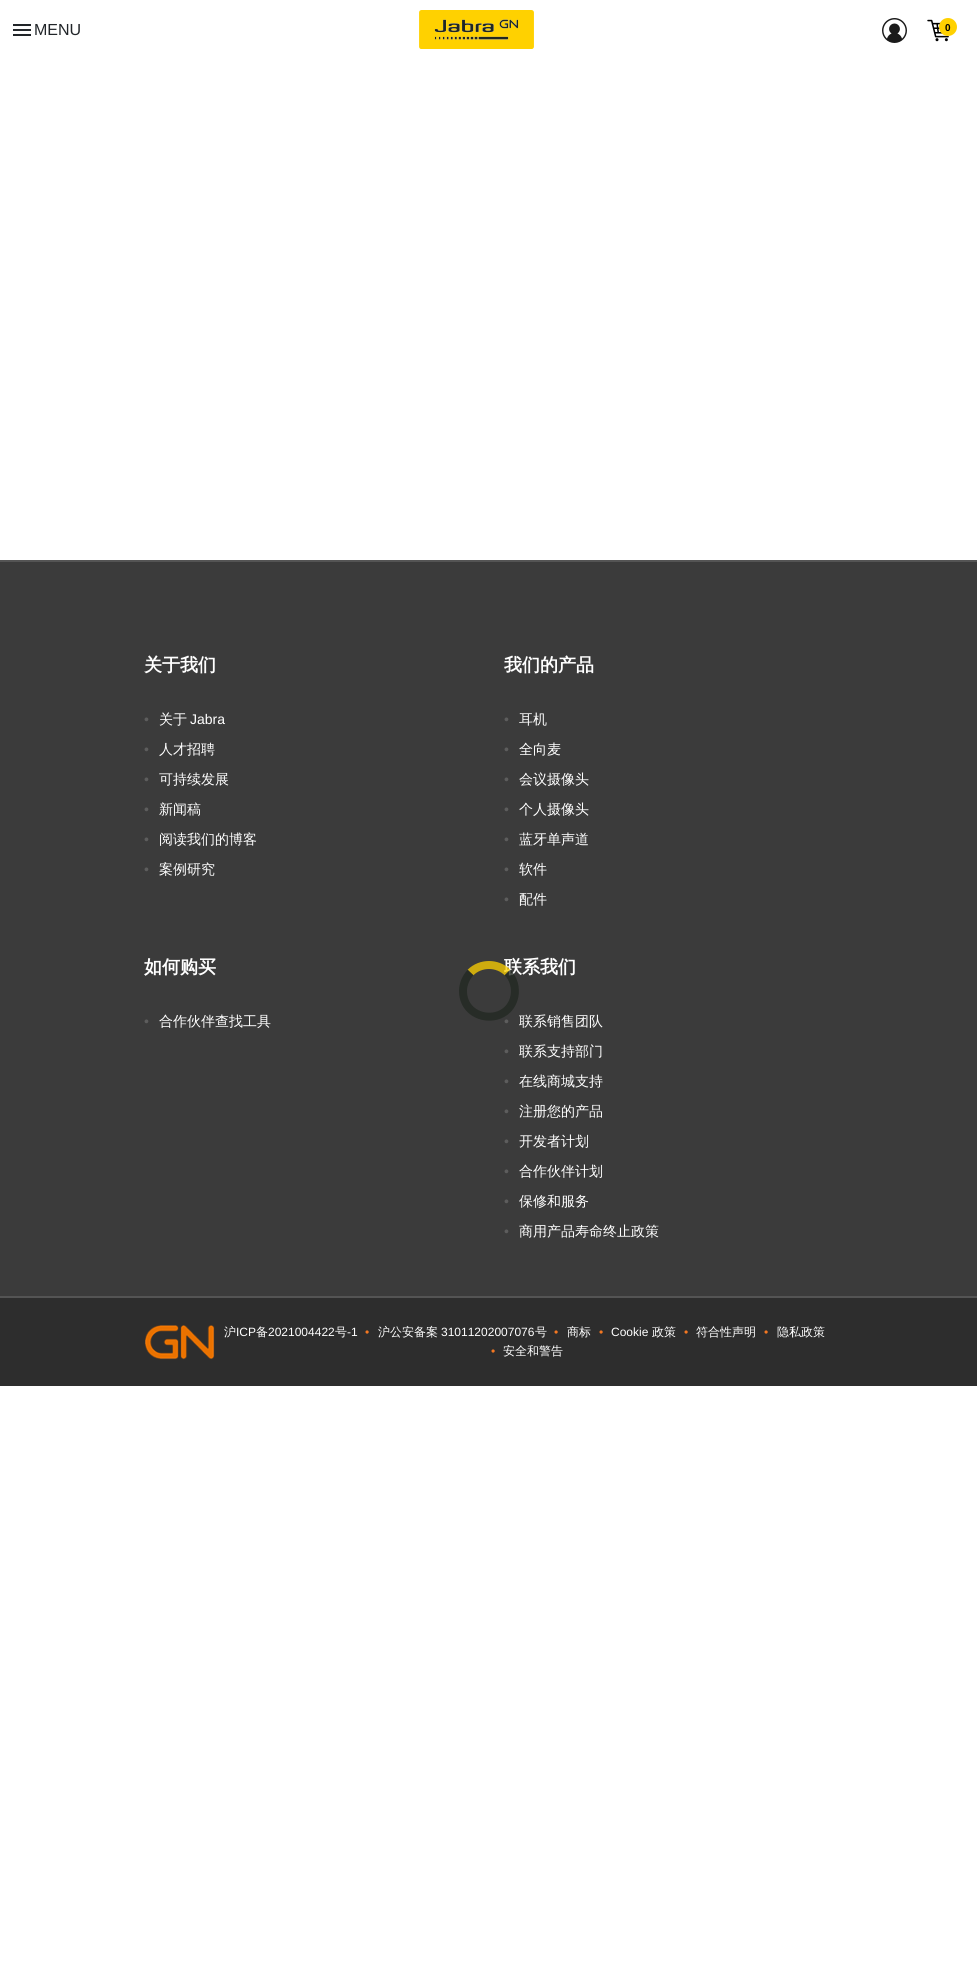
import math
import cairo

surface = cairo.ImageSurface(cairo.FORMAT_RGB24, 977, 1982)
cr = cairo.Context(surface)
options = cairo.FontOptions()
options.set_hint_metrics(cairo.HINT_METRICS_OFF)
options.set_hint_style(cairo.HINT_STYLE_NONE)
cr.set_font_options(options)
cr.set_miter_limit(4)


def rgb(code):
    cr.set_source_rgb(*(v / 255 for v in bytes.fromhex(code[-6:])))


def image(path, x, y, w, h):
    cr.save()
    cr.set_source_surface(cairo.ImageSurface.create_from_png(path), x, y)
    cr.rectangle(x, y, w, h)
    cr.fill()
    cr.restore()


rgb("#ffffff")
cr.paint()
image("img/1.png", 13, 24, 18, 12)
image("img/2.png", 419, 10, 115, 39)
image("img/3.png", 882, 18, 25, 25)
image("img/4.png", 927, 19, 22, 23)
rgb("#ffd100")
cr.arc(948, 27, 9, 0, 2 * math.pi)
cr.fill()
for x, y, w, h, color in [
    (0, 562, 977, 734, "#3b3b3b"),
    (0, 560, 977, 2, "#545454"),
    (0, 1298, 977, 88, "#2d2d2d"),
    (0, 1296, 977, 2, "#545454"),
]:
    rgb(color)
    cr.rectangle(x, y, w, h)
    cr.fill()
image("img/5.png", 145, 1325, 70, 35)
cr.select_font_face("Liberation Sans")
cr.set_font_size(16)
rgb("#212529")
cr.move_to(34, 35)
cr.show_text("MENU")
cr.select_font_face("Liberation Sans", cairo.FONT_SLANT_NORMAL, cairo.FONT_WEIGHT_BOLD)
cr.set_font_size(10)
rgb("#000000")
cr.move_to(945, 31)
cr.show_text("0")
cr.select_font_face("WenQuanYi Zen Hei", cairo.FONT_SLANT_NORMAL, cairo.FONT_WEIGHT_BOLD)
cr.set_font_size(18)
rgb("#ffffff")
cr.move_to(144, 671)
cr.show_text("关于我们")
cr.select_font_face("Liberation Sans")
cr.set_font_size(14)
rgb("#5d5d5d")
cr.move_to(144, 724)
cr.show_text("•")
cr.select_font_face("WenQuanYi Zen Hei Medium")
rgb("#ffffff")
cr.move_to(159, 724)
cr.show_text("关于")
cr.select_font_face("Liberation Sans")
cr.move_to(190, 724)
cr.show_text("Jabra")
rgb("#5d5d5d")
cr.move_to(144, 754)
cr.show_text("•")
cr.select_font_face("WenQuanYi Zen Hei Medium")
rgb("#ffffff")
cr.move_to(159, 754)
cr.show_text("人才招聘")
cr.select_font_face("Liberation Sans")
rgb("#5d5d5d")
cr.move_to(144, 784)
cr.show_text("•")
cr.select_font_face("WenQuanYi Zen Hei Medium")
rgb("#ffffff")
cr.move_to(159, 784)
cr.show_text("可持续发展")
cr.select_font_face("Liberation Sans")
rgb("#5d5d5d")
cr.move_to(144, 814)
cr.show_text("•")
cr.select_font_face("WenQuanYi Zen Hei Medium")
rgb("#ffffff")
cr.move_to(159, 814)
cr.show_text("新闻稿")
cr.select_font_face("Liberation Sans")
rgb("#5d5d5d")
cr.move_to(144, 844)
cr.show_text("•")
cr.select_font_face("WenQuanYi Zen Hei Medium")
rgb("#ffffff")
cr.move_to(159, 844)
cr.show_text("阅读我们的博客")
cr.select_font_face("Liberation Sans")
rgb("#5d5d5d")
cr.move_to(144, 874)
cr.show_text("•")
cr.select_font_face("WenQuanYi Zen Hei Medium")
rgb("#ffffff")
cr.move_to(159, 874)
cr.show_text("案例研究")
cr.select_font_face("WenQuanYi Zen Hei", cairo.FONT_SLANT_NORMAL, cairo.FONT_WEIGHT_BOLD)
cr.set_font_size(18)
cr.move_to(504, 671)
cr.show_text("我们的产品")
cr.select_font_face("Liberation Sans")
cr.set_font_size(14)
rgb("#5d5d5d")
cr.move_to(504, 724)
cr.show_text("•")
cr.select_font_face("WenQuanYi Zen Hei Medium")
rgb("#ffffff")
cr.move_to(519, 724)
cr.show_text("耳机")
cr.select_font_face("Liberation Sans")
rgb("#5d5d5d")
cr.move_to(504, 754)
cr.show_text("•")
cr.select_font_face("WenQuanYi Zen Hei Medium")
rgb("#ffffff")
cr.move_to(519, 754)
cr.show_text("全向麦")
cr.select_font_face("Liberation Sans")
rgb("#5d5d5d")
cr.move_to(504, 784)
cr.show_text("•")
cr.select_font_face("WenQuanYi Zen Hei Medium")
rgb("#ffffff")
cr.move_to(519, 784)
cr.show_text("会议摄像头")
cr.select_font_face("Liberation Sans")
rgb("#5d5d5d")
cr.move_to(504, 814)
cr.show_text("•")
cr.select_font_face("WenQuanYi Zen Hei Medium")
rgb("#ffffff")
cr.move_to(519, 814)
cr.show_text("个人摄像头")
cr.select_font_face("Liberation Sans")
rgb("#5d5d5d")
cr.move_to(504, 844)
cr.show_text("•")
cr.select_font_face("WenQuanYi Zen Hei Medium")
rgb("#ffffff")
cr.move_to(519, 844)
cr.show_text("蓝牙单声道")
cr.select_font_face("Liberation Sans")
rgb("#5d5d5d")
cr.move_to(504, 874)
cr.show_text("•")
cr.select_font_face("WenQuanYi Zen Hei Medium")
rgb("#ffffff")
cr.move_to(519, 874)
cr.show_text("软件")
cr.select_font_face("Liberation Sans")
rgb("#5d5d5d")
cr.move_to(504, 904)
cr.show_text("•")
cr.select_font_face("WenQuanYi Zen Hei Medium")
rgb("#ffffff")
cr.move_to(519, 904)
cr.show_text("配件")
cr.select_font_face("WenQuanYi Zen Hei", cairo.FONT_SLANT_NORMAL, cairo.FONT_WEIGHT_BOLD)
cr.set_font_size(18)
cr.move_to(144, 973)
cr.show_text("如何购买")
cr.select_font_face("Liberation Sans")
cr.set_font_size(14)
rgb("#5d5d5d")
cr.move_to(144, 1026)
cr.show_text("•")
cr.select_font_face("WenQuanYi Zen Hei Medium")
rgb("#ffffff")
cr.move_to(159, 1026)
cr.show_text("合作伙伴查找工具")
cr.select_font_face("WenQuanYi Zen Hei", cairo.FONT_SLANT_NORMAL, cairo.FONT_WEIGHT_BOLD)
cr.set_font_size(18)
cr.move_to(504, 973)
cr.show_text("联系我们")
cr.select_font_face("Liberation Sans")
cr.set_font_size(14)
rgb("#5d5d5d")
cr.move_to(504, 1026)
cr.show_text("•")
cr.select_font_face("WenQuanYi Zen Hei Medium")
rgb("#ffffff")
cr.move_to(519, 1026)
cr.show_text("联系销售团队")
cr.select_font_face("Liberation Sans")
rgb("#5d5d5d")
cr.move_to(504, 1056)
cr.show_text("•")
cr.select_font_face("WenQuanYi Zen Hei Medium")
rgb("#ffffff")
cr.move_to(519, 1056)
cr.show_text("联系支持部门")
cr.select_font_face("Liberation Sans")
rgb("#5d5d5d")
cr.move_to(504, 1086)
cr.show_text("•")
cr.select_font_face("WenQuanYi Zen Hei Medium")
rgb("#ffffff")
cr.move_to(519, 1086)
cr.show_text("在线商城支持")
cr.select_font_face("Liberation Sans")
rgb("#5d5d5d")
cr.move_to(504, 1116)
cr.show_text("•")
cr.select_font_face("WenQuanYi Zen Hei Medium")
rgb("#ffffff")
cr.move_to(519, 1116)
cr.show_text("注册您的产品")
cr.select_font_face("Liberation Sans")
rgb("#5d5d5d")
cr.move_to(504, 1146)
cr.show_text("•")
cr.select_font_face("WenQuanYi Zen Hei Medium")
rgb("#ffffff")
cr.move_to(519, 1146)
cr.show_text("开发者计划")
cr.select_font_face("Liberation Sans")
rgb("#5d5d5d")
cr.move_to(504, 1176)
cr.show_text("•")
cr.select_font_face("WenQuanYi Zen Hei Medium")
rgb("#ffffff")
cr.move_to(519, 1176)
cr.show_text("合作伙伴计划")
cr.select_font_face("Liberation Sans")
rgb("#5d5d5d")
cr.move_to(504, 1206)
cr.show_text("•")
cr.select_font_face("WenQuanYi Zen Hei Medium")
rgb("#ffffff")
cr.move_to(519, 1206)
cr.show_text("保修和服务")
cr.select_font_face("Liberation Sans")
rgb("#5d5d5d")
cr.move_to(504, 1236)
cr.show_text("•")
cr.select_font_face("WenQuanYi Zen Hei Medium")
rgb("#ffffff")
cr.move_to(519, 1236)
cr.show_text("商用产品寿命终止政策")
cr.set_font_size(12)
cr.move_to(224, 1336)
cr.show_text("沪")
cr.select_font_face("Liberation Sans")
cr.move_to(236, 1336)
cr.show_text("ICP")
cr.select_font_face("WenQuanYi Zen Hei Medium")
cr.move_to(256, 1336)
cr.show_text("备")
cr.select_font_face("Liberation Sans")
cr.move_to(268, 1336)
cr.show_text("2021004422")
cr.select_font_face("WenQuanYi Zen Hei Medium")
cr.move_to(335, 1336)
cr.show_text("号")
cr.select_font_face("Liberation Sans")
cr.move_to(347, 1336)
cr.show_text("-1")
rgb("#f47721")
cr.move_to(365, 1336)
cr.show_text("•")
cr.select_font_face("WenQuanYi Zen Hei Medium")
rgb("#ffffff")
cr.move_to(378, 1336)
cr.show_text("沪公安备案")
cr.select_font_face("Liberation Sans")
cr.move_to(441, 1336)
cr.show_text("31011202007076")
cr.select_font_face("WenQuanYi Zen Hei Medium")
cr.move_to(535, 1336)
cr.show_text("号")
cr.select_font_face("Liberation Sans")
rgb("#f47721")
cr.move_to(554, 1336)
cr.show_text("•")
cr.select_font_face("WenQuanYi Zen Hei Medium")
rgb("#ffffff")
cr.move_to(567, 1336)
cr.show_text("商标")
cr.select_font_face("Liberation Sans")
rgb("#f47721")
cr.move_to(599, 1336)
cr.show_text("•")
rgb("#ffffff")
cr.move_to(611, 1336)
cr.show_text("Cookie")
cr.select_font_face("WenQuanYi Zen Hei Medium")
cr.move_to(652, 1336)
cr.show_text("政策")
cr.select_font_face("Liberation Sans")
rgb("#f47721")
cr.move_to(684, 1336)
cr.show_text("•")
cr.select_font_face("WenQuanYi Zen Hei Medium")
rgb("#ffffff")
cr.move_to(696, 1336)
cr.show_text("符合性声明")
cr.select_font_face("Liberation Sans")
rgb("#f47721")
cr.move_to(764, 1336)
cr.show_text("•")
cr.select_font_face("WenQuanYi Zen Hei Medium")
rgb("#ffffff")
cr.move_to(777, 1336)
cr.show_text("隐私政策")
cr.select_font_face("Liberation Sans")
rgb("#f47721")
cr.move_to(491, 1355)
cr.show_text("•")
cr.select_font_face("WenQuanYi Zen Hei Medium")
rgb("#ffffff")
cr.move_to(503, 1355)
cr.show_text("安全和警告")
cr.new_path()
cr.move_to(470.5, 972.5)
cr.curve_to(480.5, 962.5, 497.5, 962.5, 507.5, 972.5)
cr.set_source_rgba(1, 0.82, 0, 0.75)
cr.set_line_width(8)
cr.stroke()
cr.new_path()
cr.move_to(507.5, 972.5)
cr.curve_to(513.5, 978.5, 516, 987.5, 514.5, 996)
cr.curve_to(508.5, 1026.5, 463, 1022, 463, 991)
cr.curve_to(463, 984, 466, 977.5, 470.5, 972.5)
cr.set_source_rgba(0.129, 0.153, 0.129, 0.75)
cr.stroke()
surface.write_to_png("page.png")
